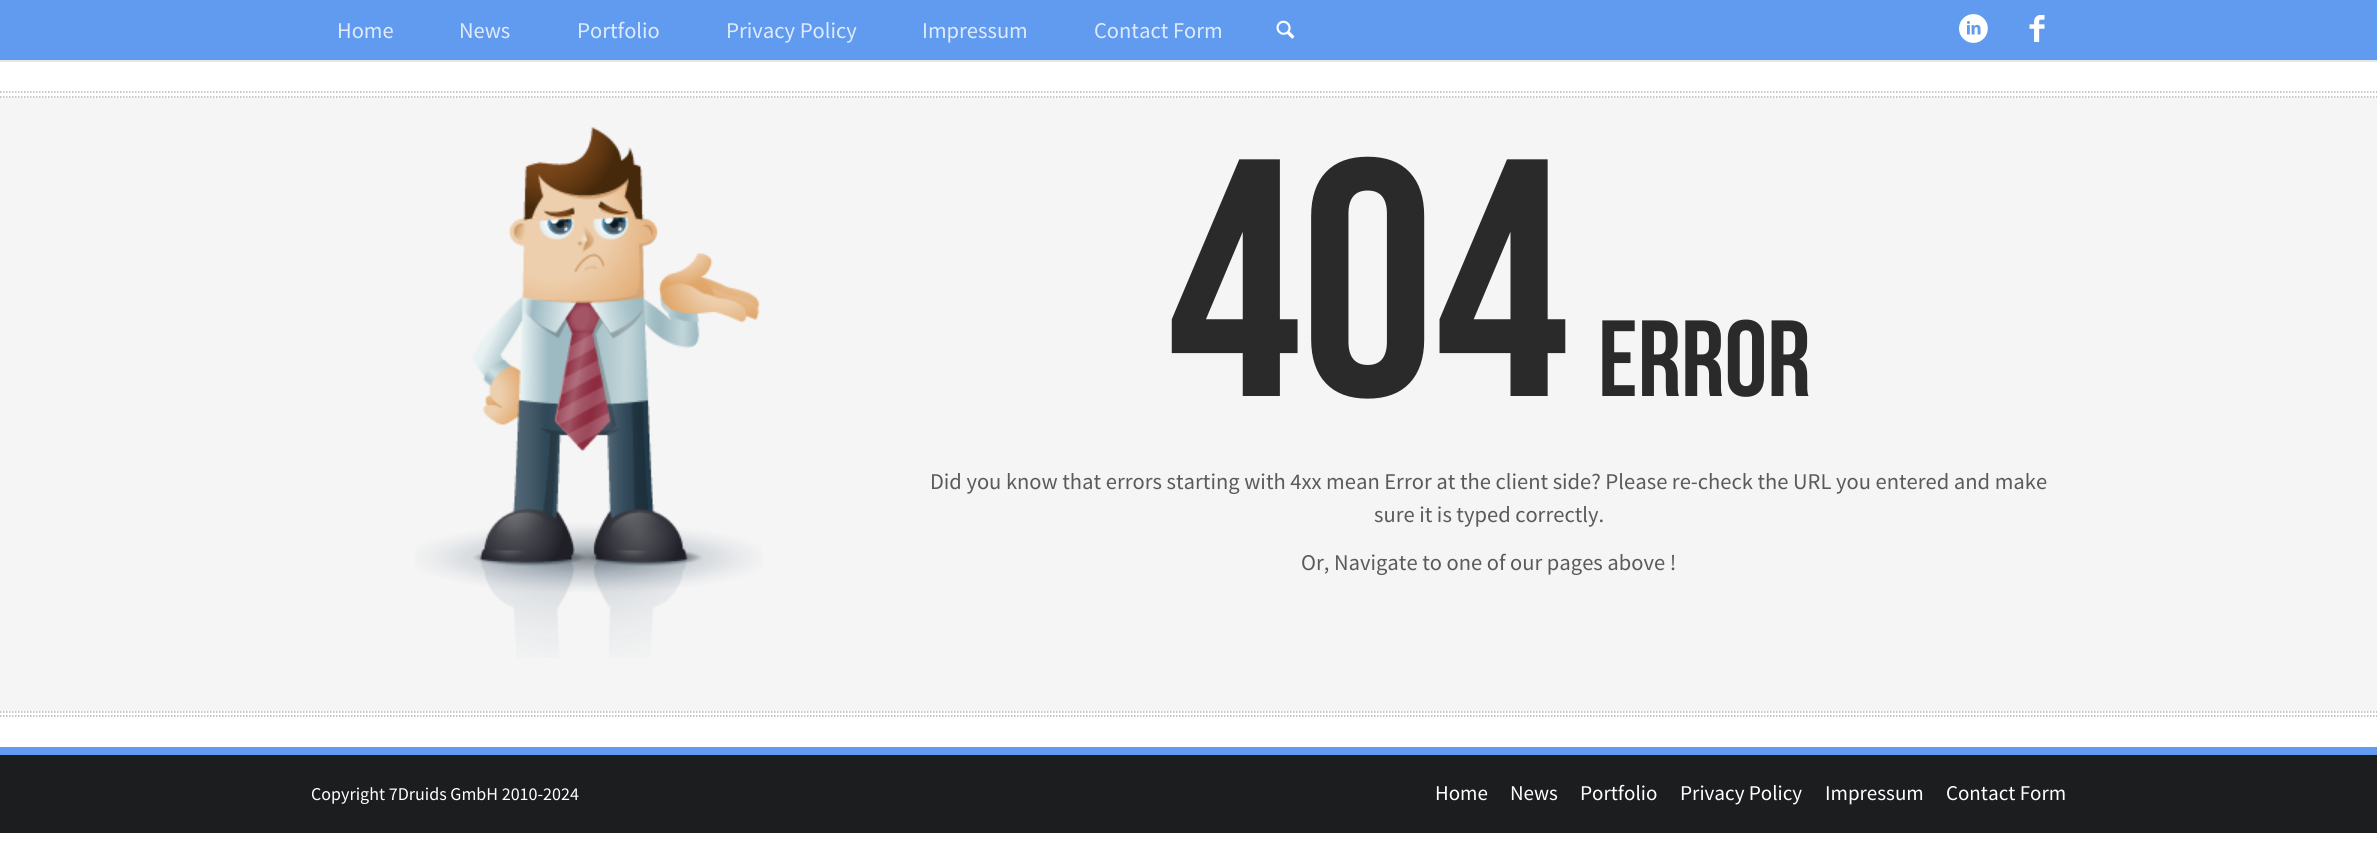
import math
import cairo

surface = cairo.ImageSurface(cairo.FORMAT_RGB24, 2377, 853)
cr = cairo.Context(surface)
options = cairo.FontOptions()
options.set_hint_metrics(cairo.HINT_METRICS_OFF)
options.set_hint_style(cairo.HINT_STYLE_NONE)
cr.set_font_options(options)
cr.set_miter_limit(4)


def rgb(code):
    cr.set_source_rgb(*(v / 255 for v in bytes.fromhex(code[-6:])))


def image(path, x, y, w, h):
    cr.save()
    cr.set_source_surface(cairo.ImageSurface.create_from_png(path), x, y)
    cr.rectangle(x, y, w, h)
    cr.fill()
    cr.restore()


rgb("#ffffff")
cr.paint()
rgb("#619bf0")
cr.rectangle(0, 0, 2377, 60)
cr.fill()
image("img/1.png", 1276, 20, 19, 19)
image("img/2.png", 1959, 14, 29, 29)
image("img/3.png", 2029, 15, 16, 27)
rgb("#e5e5e5")
cr.rectangle(0, 60, 2377, 2)
cr.fill()
rgb("#f5f5f5")
cr.rectangle(0, 98, 2377, 613)
cr.fill()
cr.new_path()
cr.move_to(0, 92)
cr.line_to(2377.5, 92)
rgb("#b5b5b5")
cr.set_line_width(1.5)
cr.set_dash([1.5, 1.5])
cr.stroke()
cr.new_path()
cr.move_to(0, 97)
cr.line_to(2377.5, 97)
cr.stroke()
image("img/4.png", 415, 127, 347, 531)
cr.new_path()
cr.move_to(0, 712)
cr.line_to(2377.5, 712)
cr.stroke()
cr.new_path()
cr.move_to(0, 716)
cr.line_to(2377.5, 716)
cr.stroke()
rgb("#619bf0")
cr.rectangle(0, 747, 2377, 8)
cr.fill()
rgb("#1c1d1f")
cr.rectangle(0, 755, 2377, 78)
cr.fill()
cr.select_font_face("Source Sans Pro")
cr.set_font_size(22.5)
rgb("#dfebfc")
for x, y, s in [
    (337, 38, "Home"),
    (459, 38, "News"),
    (577, 38, "Portfolio"),
    (726, 38, "Privacy Policy"),
    (922, 38, "Impressum"),
    (1094, 38, "Contact Form"),
]:
    cr.move_to(x, y)
    cr.show_text(s)
cr.select_font_face("Bebas Neue")
cr.set_font_size(338)
rgb("#2a2a2a")
cr.move_to(1167, 396)
cr.show_text("404")
cr.set_font_size(108)
cr.move_to(1598, 396)
cr.show_text("Error")
cr.select_font_face("Source Sans Pro")
cr.set_font_size(22.5)
rgb("#5a5a5a")
for x, y, s in [
    (930, 489, "Did you know that errors starting with 4xx mean Error at the client side? Please re-check the URL you entered and make"),
    (1374, 522, "sure it is typed correctly."),
    (1301, 570, "Or, Navigate to one of our pages above !"),
]:
    cr.move_to(x, y)
    cr.show_text(s)
cr.set_font_size(18)
rgb("#ffffff")
cr.move_to(311, 800)
cr.show_text("Copyright 7Druids GmbH 2010-2024")
cr.set_font_size(21)
for x, y, s in [
    (1435, 800, "Home"),
    (1510, 800, "News"),
    (1580, 800, "Portfolio"),
    (1680, 800, "Privacy Policy"),
    (1825, 800, "Impressum"),
    (1946, 800, "Contact Form"),
]:
    cr.move_to(x, y)
    cr.show_text(s)
surface.write_to_png("page.png")
